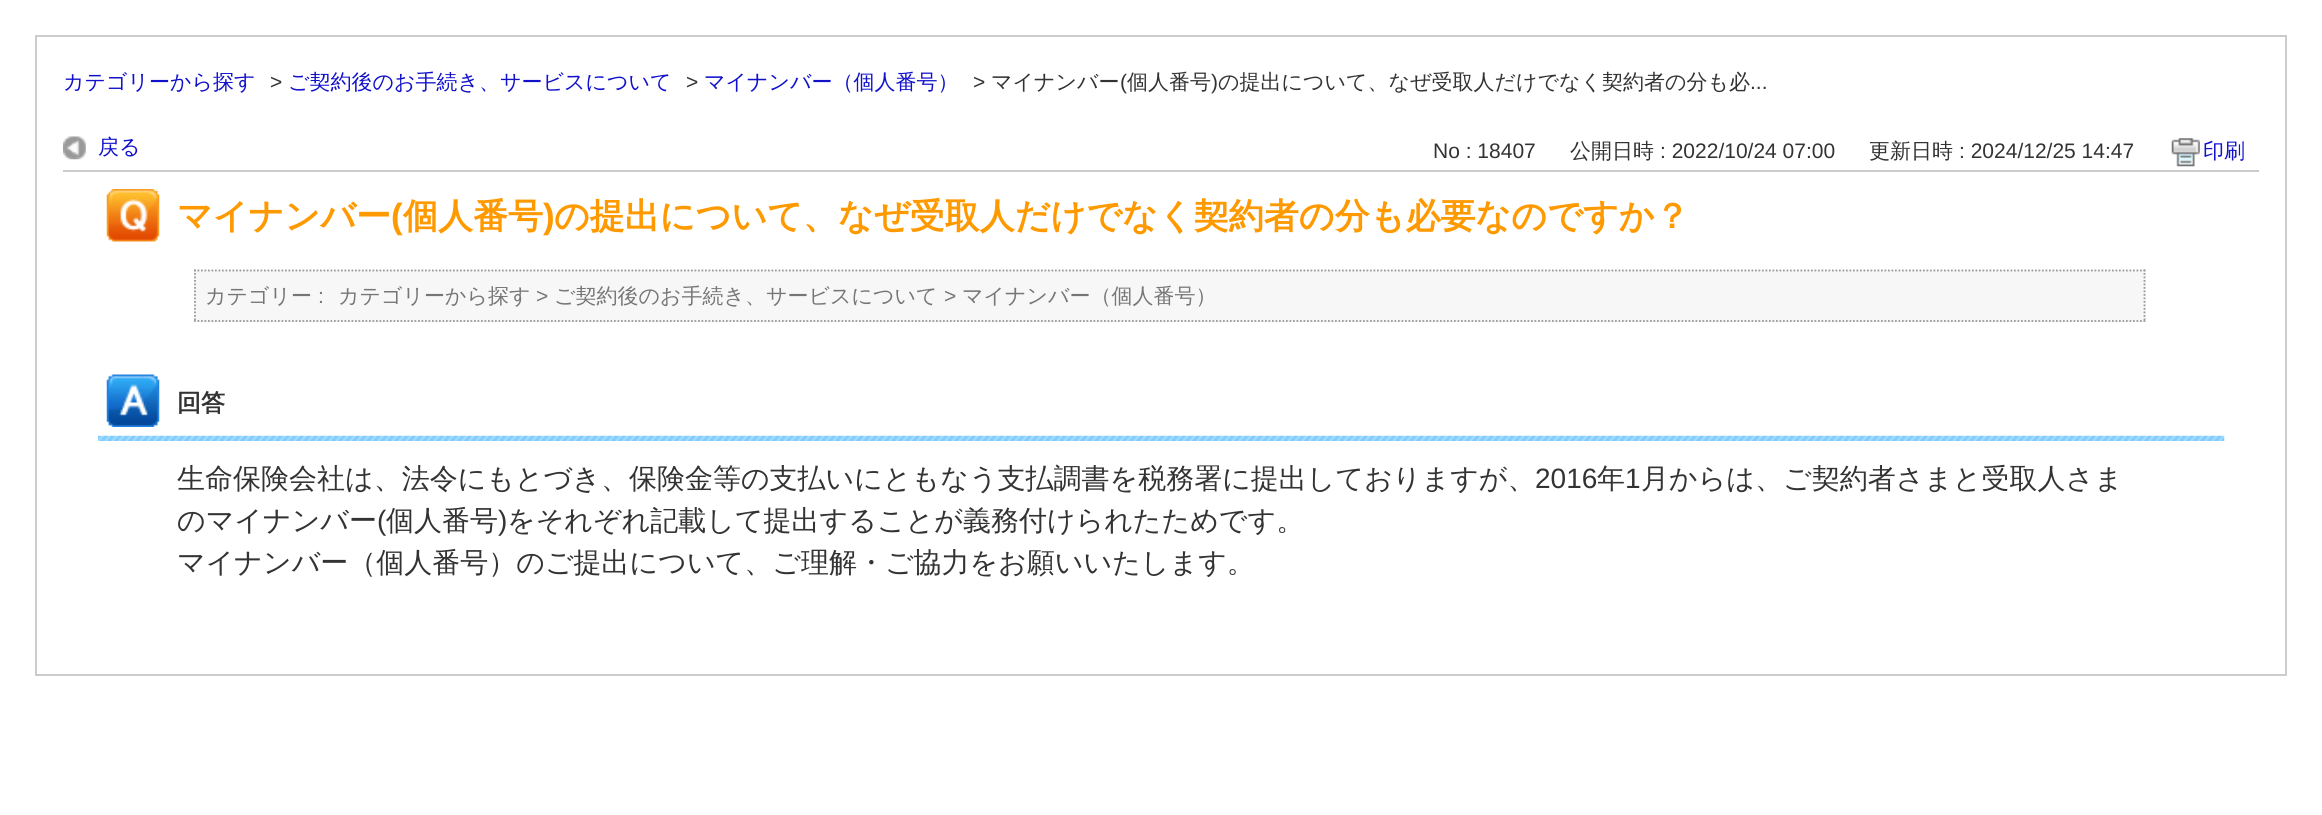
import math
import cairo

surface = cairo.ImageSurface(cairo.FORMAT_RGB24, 2322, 815)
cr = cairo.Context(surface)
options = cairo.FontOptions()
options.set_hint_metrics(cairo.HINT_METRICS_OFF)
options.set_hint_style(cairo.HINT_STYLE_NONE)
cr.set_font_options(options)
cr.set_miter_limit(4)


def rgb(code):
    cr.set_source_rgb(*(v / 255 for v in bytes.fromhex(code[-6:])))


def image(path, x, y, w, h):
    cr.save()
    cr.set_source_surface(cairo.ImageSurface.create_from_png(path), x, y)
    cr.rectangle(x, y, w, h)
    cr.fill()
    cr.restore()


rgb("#ffffff")
cr.paint()
cr.rectangle(36, 36, 2250, 639)
rgb("#cccccc")
cr.stroke()
cr.rectangle(63, 170, 2196, 2)
cr.fill()
image("img/1.png", 63, 136, 23, 24)
image("img/2.png", 2171, 138, 29, 29)
image("img/3.png", 106, 189, 54, 53)
rgb("#f7f7f7")
cr.rectangle(194, 270, 1952, 52)
cr.fill()
cr.new_path()
cr.move_to(194, 270.5)
cr.line_to(2145.5, 270.5)
rgb("#999999")
cr.set_line_width(1.8)
cr.set_dash([1.75, 1.75])
cr.stroke()
cr.new_path()
cr.move_to(2144.5, 269.5)
cr.line_to(2144.5, 322)
cr.stroke()
cr.new_path()
cr.move_to(194, 321)
cr.line_to(2145.5, 321)
cr.stroke()
cr.new_path()
cr.move_to(195, 269.5)
cr.line_to(195, 322)
cr.stroke()
image("img/4.png", 98, 435, 2127, 6)
image("img/5.png", 106, 374, 54, 53)
cr.select_font_face("WenQuanYi Zen Hei Medium")
cr.set_font_size(21)
rgb("#1111cc")
cr.move_to(63, 89)
cr.show_text("カテゴリーから探す")
cr.select_font_face("Liberation Sans")
rgb("#333333")
cr.move_to(270, 89)
cr.show_text(">")
cr.select_font_face("WenQuanYi Zen Hei Medium")
rgb("#1111cc")
cr.move_to(288, 89)
cr.show_text("ご契約後のお手続き、サービスについて")
cr.select_font_face("Liberation Sans")
rgb("#333333")
cr.move_to(686, 89)
cr.show_text(">")
cr.select_font_face("WenQuanYi Zen Hei Medium")
rgb("#1111cc")
cr.move_to(704, 89)
cr.show_text("マイナンバー（個人番号）")
cr.select_font_face("Liberation Sans")
rgb("#333333")
cr.move_to(973, 89)
cr.show_text(">")
cr.select_font_face("WenQuanYi Zen Hei Medium")
cr.move_to(991, 89)
cr.show_text("マイナンバー")
cr.select_font_face("Liberation Sans")
cr.move_to(1120, 89)
cr.show_text("(")
cr.select_font_face("WenQuanYi Zen Hei Medium")
cr.move_to(1127, 89)
cr.show_text("個人番号")
cr.select_font_face("Liberation Sans")
cr.move_to(1211, 89)
cr.show_text(")")
cr.select_font_face("WenQuanYi Zen Hei Medium")
cr.move_to(1218, 89)
cr.show_text("の提出について、なぜ受取人だけでなく契約者の分も必")
cr.select_font_face("Liberation Sans")
cr.move_to(1750, 89)
cr.show_text("...")
cr.select_font_face("WenQuanYi Zen Hei Medium")
rgb("#1111cc")
cr.move_to(98, 154)
cr.show_text("戻る")
cr.select_font_face("Liberation Sans")
rgb("#333333")
cr.move_to(1433, 158)
cr.show_text("No : 18407")
cr.select_font_face("WenQuanYi Zen Hei Medium")
cr.move_to(1570, 158)
cr.show_text("公開日時")
cr.select_font_face("Liberation Sans")
cr.move_to(1660, 158)
cr.show_text(": 2022/10/24 07:00")
cr.select_font_face("WenQuanYi Zen Hei Medium")
cr.move_to(1869, 158)
cr.show_text("更新日時")
cr.select_font_face("Liberation Sans")
cr.move_to(1959, 158)
cr.show_text(": 2024/12/25 14:47")
cr.select_font_face("WenQuanYi Zen Hei Medium")
rgb("#1111cc")
cr.move_to(2203, 158)
cr.show_text("印刷")
cr.select_font_face("WenQuanYi Zen Hei", cairo.FONT_SLANT_NORMAL, cairo.FONT_WEIGHT_BOLD)
cr.set_font_size(35)
rgb("#ff9900")
cr.move_to(177, 228)
cr.show_text("マイナンバー")
cr.select_font_face("Liberation Sans", cairo.FONT_SLANT_NORMAL, cairo.FONT_WEIGHT_BOLD)
cr.move_to(391, 228)
cr.show_text("(")
cr.select_font_face("WenQuanYi Zen Hei", cairo.FONT_SLANT_NORMAL, cairo.FONT_WEIGHT_BOLD)
cr.move_to(403, 228)
cr.show_text("個人番号")
cr.select_font_face("Liberation Sans", cairo.FONT_SLANT_NORMAL, cairo.FONT_WEIGHT_BOLD)
cr.move_to(543, 228)
cr.show_text(")")
cr.select_font_face("WenQuanYi Zen Hei", cairo.FONT_SLANT_NORMAL, cairo.FONT_WEIGHT_BOLD)
cr.move_to(554, 228)
cr.show_text("の提出について、なぜ受取人だけでなく契約者の分も必要なのですか？")
cr.select_font_face("WenQuanYi Zen Hei Medium")
cr.set_font_size(21)
rgb("#767676")
cr.move_to(205, 303)
cr.show_text("カテゴリー")
cr.select_font_face("Liberation Sans")
cr.move_to(318, 303)
cr.show_text(":")
cr.select_font_face("WenQuanYi Zen Hei Medium")
cr.move_to(338, 303)
cr.show_text("カテゴリーから探す")
cr.select_font_face("Liberation Sans")
cr.move_to(536, 303)
cr.show_text(">")
cr.select_font_face("WenQuanYi Zen Hei Medium")
cr.move_to(554, 303)
cr.show_text("ご契約後のお手続き、サービスについて")
cr.select_font_face("Liberation Sans")
cr.move_to(944, 303)
cr.show_text(">")
cr.select_font_face("WenQuanYi Zen Hei Medium")
cr.move_to(962, 303)
cr.show_text("マイナンバー（個人番号）")
cr.select_font_face("WenQuanYi Zen Hei", cairo.FONT_SLANT_NORMAL, cairo.FONT_WEIGHT_BOLD)
cr.set_font_size(24)
rgb("#333333")
cr.move_to(177, 411)
cr.show_text("回答")
cr.select_font_face("WenQuanYi Zen Hei Medium")
cr.set_font_size(28)
cr.move_to(177, 488)
cr.show_text("生命保険会社は、法令にもとづき、保険金等の支払いにともなう支払調書を税務署に提出しておりますが、")
cr.select_font_face("Liberation Sans")
cr.move_to(1535, 488)
cr.show_text("2016")
cr.select_font_face("WenQuanYi Zen Hei Medium")
cr.move_to(1597, 488)
cr.show_text("年")
cr.select_font_face("Liberation Sans")
cr.move_to(1625, 488)
cr.show_text("1")
cr.select_font_face("WenQuanYi Zen Hei Medium")
cr.move_to(1641, 488)
cr.show_text("月からは、ご契約者さまと受取人さま")
cr.move_to(177, 530)
cr.show_text("のマイナンバー")
cr.select_font_face("Liberation Sans")
cr.move_to(377, 530)
cr.show_text("(")
cr.select_font_face("WenQuanYi Zen Hei Medium")
cr.move_to(386, 530)
cr.show_text("個人番号")
cr.select_font_face("Liberation Sans")
cr.move_to(498, 530)
cr.show_text(")")
cr.select_font_face("WenQuanYi Zen Hei Medium")
cr.move_to(507, 530)
cr.show_text("をそれぞれ記載して提出することが義務付けられたためです。")
cr.move_to(177, 572)
cr.show_text("マイナンバー（個人番号）のご提出について、ご理解・ご協力をお願いいたします。")
surface.write_to_png("page.png")
